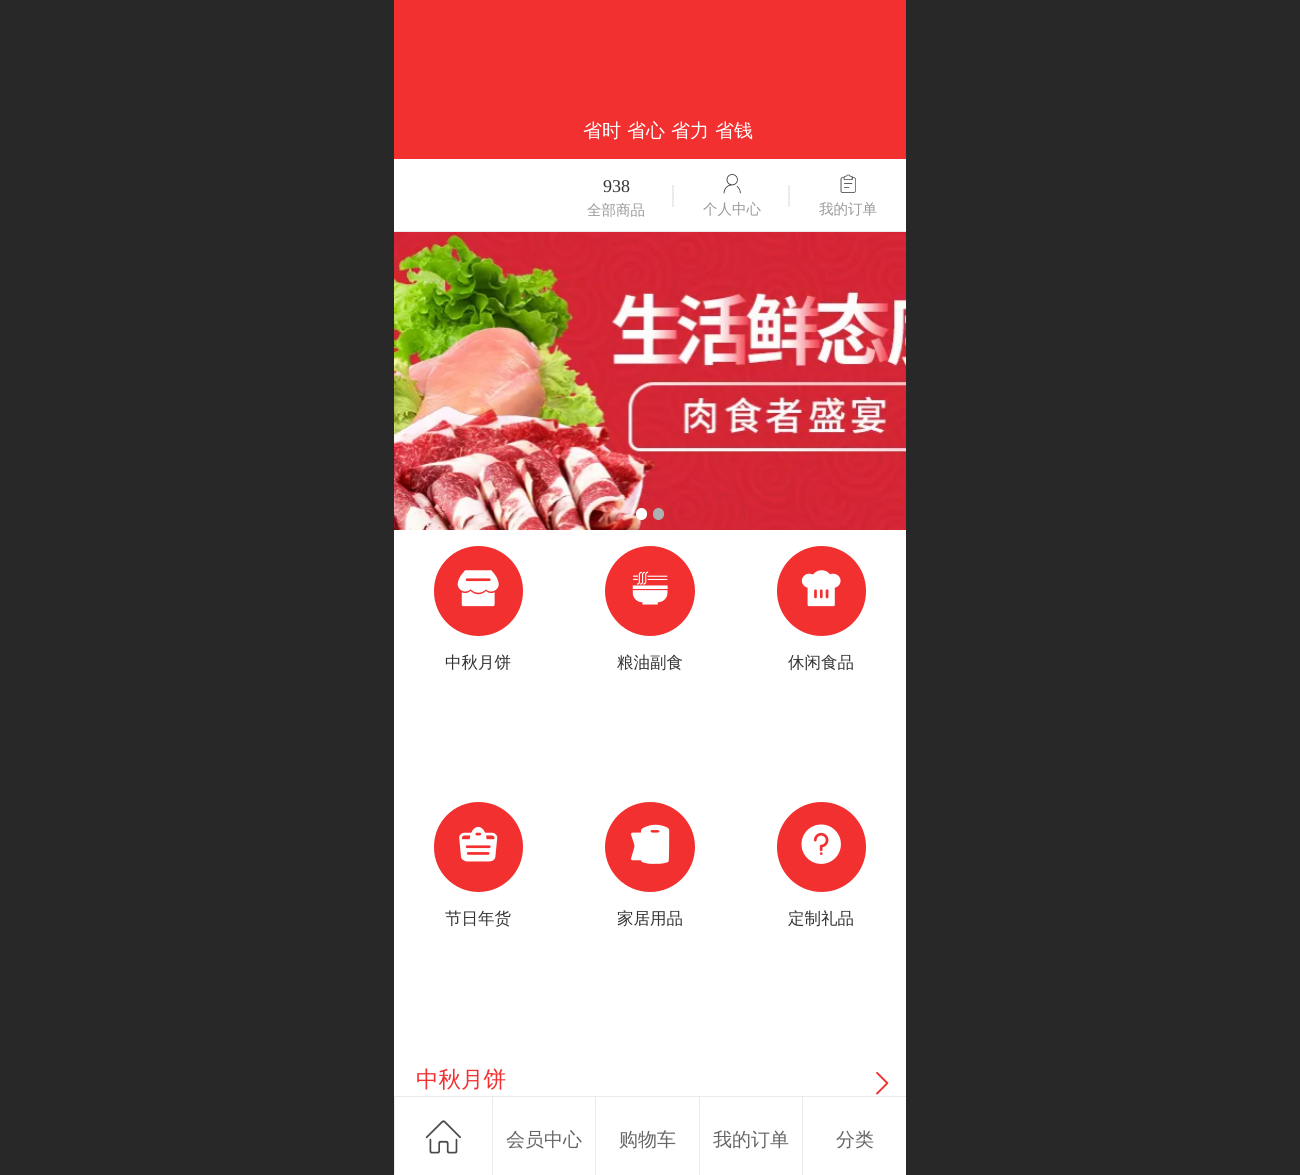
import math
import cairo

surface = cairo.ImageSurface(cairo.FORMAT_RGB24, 1300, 1175)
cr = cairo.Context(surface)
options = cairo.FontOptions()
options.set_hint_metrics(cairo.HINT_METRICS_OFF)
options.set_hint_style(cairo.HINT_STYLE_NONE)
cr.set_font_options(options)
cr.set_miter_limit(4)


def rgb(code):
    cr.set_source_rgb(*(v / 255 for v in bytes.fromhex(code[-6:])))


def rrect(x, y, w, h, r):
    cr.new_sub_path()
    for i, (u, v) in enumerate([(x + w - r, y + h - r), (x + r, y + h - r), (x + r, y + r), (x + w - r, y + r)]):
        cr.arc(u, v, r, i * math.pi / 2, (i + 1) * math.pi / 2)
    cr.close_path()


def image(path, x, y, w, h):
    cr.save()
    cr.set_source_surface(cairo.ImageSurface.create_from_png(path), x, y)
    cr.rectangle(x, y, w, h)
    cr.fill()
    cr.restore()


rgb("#ffffff")
cr.paint()
for x, y, w, h, color in [
    (0, 0, 394, 1175, "#282828"),
    (394, 0, 512, 159, "#f23030"),
    (394, 231, 512, 1, "#ebebeb"),
    (672, 185, 2, 22, "#ebebeb"),
]:
    rgb(color)
    cr.rectangle(x, y, w, h)
    cr.fill()
image("img/1.png", 723, 174, 18, 20)
cr.rectangle(788, 185, 2, 22)
cr.fill()
image("img/2.png", 840, 174, 16, 19)
image("img/3.png", 394, 232, 512, 298)
rgb("#ffffff")
rrect(636, 508, 11, 12, 5.5)
cr.fill()
rgb("#adb1b1")
rrect(653, 508, 11, 12, 5.5)
cr.fill()
rgb("#f23030")
rrect(434, 546, 89, 90, 44.5)
cr.fill()
image("img/4.png", 457, 570, 42, 37)
cr.arc(650, 591, 45, 0, 2 * math.pi)
cr.fill()
image("img/5.png", 632, 571, 36, 34)
rrect(777, 546, 89, 90, 44.5)
cr.fill()
image("img/6.png", 801, 570, 40, 37)
rrect(434, 802, 89, 90, 44.5)
cr.fill()
image("img/7.png", 459, 826, 39, 36)
cr.arc(650, 847, 45, 0, 2 * math.pi)
cr.fill()
image("img/8.png", 631, 824, 39, 40)
rrect(777, 802, 89, 90, 44.5)
cr.fill()
image("img/9.png", 801, 824, 40, 40)
image("img/10.png", 876, 1071, 13, 24)
rgb("#ebebeb")
cr.rectangle(394, 1096, 512, 1)
cr.fill()
cr.rectangle(394, 1096, 1, 78)
cr.fill()
image("img/11.png", 425, 1120, 36, 34)
for x, y, w, h, color in [
    (492, 1097, 1, 78, "#ebebeb"),
    (595, 1097, 1, 78, "#ebebeb"),
    (699, 1097, 1, 78, "#ebebeb"),
    (802, 1097, 1, 78, "#ebebeb"),
    (906, 0, 394, 1175, "#282828"),
]:
    rgb(color)
    cr.rectangle(x, y, w, h)
    cr.fill()
cr.select_font_face("WenQuanYi Zen Hei Medium")
cr.set_font_size(19)
rgb("#ffffff")
for x, y, s in [
    (583, 137, "省时"),
    (627, 137, "省心"),
    (671, 137, "省力"),
    (715, 137, "省钱"),
]:
    cr.move_to(x, y)
    cr.show_text(s)
cr.select_font_face("Liberation Serif")
cr.set_font_size(18)
rgb("#333333")
cr.move_to(603, 192)
cr.show_text("938")
cr.select_font_face("WenQuanYi Zen Hei Medium")
cr.set_font_size(14.5)
rgb("#999999")
for x, y, s in [
    (587, 215, "全部商品"),
    (703, 214, "个人中心"),
    (819, 214, "我的订单"),
]:
    cr.move_to(x, y)
    cr.show_text(s)
cr.set_font_size(16.5)
rgb("#333333")
for x, y, s in [
    (445, 668, "中秋月饼"),
    (617, 668, "粮油副食"),
    (788, 668, "休闲食品"),
    (445, 924, "节日年货"),
    (617, 924, "家居用品"),
    (788, 924, "定制礼品"),
]:
    cr.move_to(x, y)
    cr.show_text(s)
cr.set_font_size(22.5)
rgb("#f23030")
cr.move_to(416, 1087)
cr.show_text("中秋月饼")
cr.set_font_size(19)
rgb("#666666")
for x, y, s in [
    (506, 1146, "会员中心"),
    (619, 1146, "购物车"),
    (713, 1146, "我的订单"),
    (836, 1146, "分类"),
]:
    cr.move_to(x, y)
    cr.show_text(s)
surface.write_to_png("page.png")
